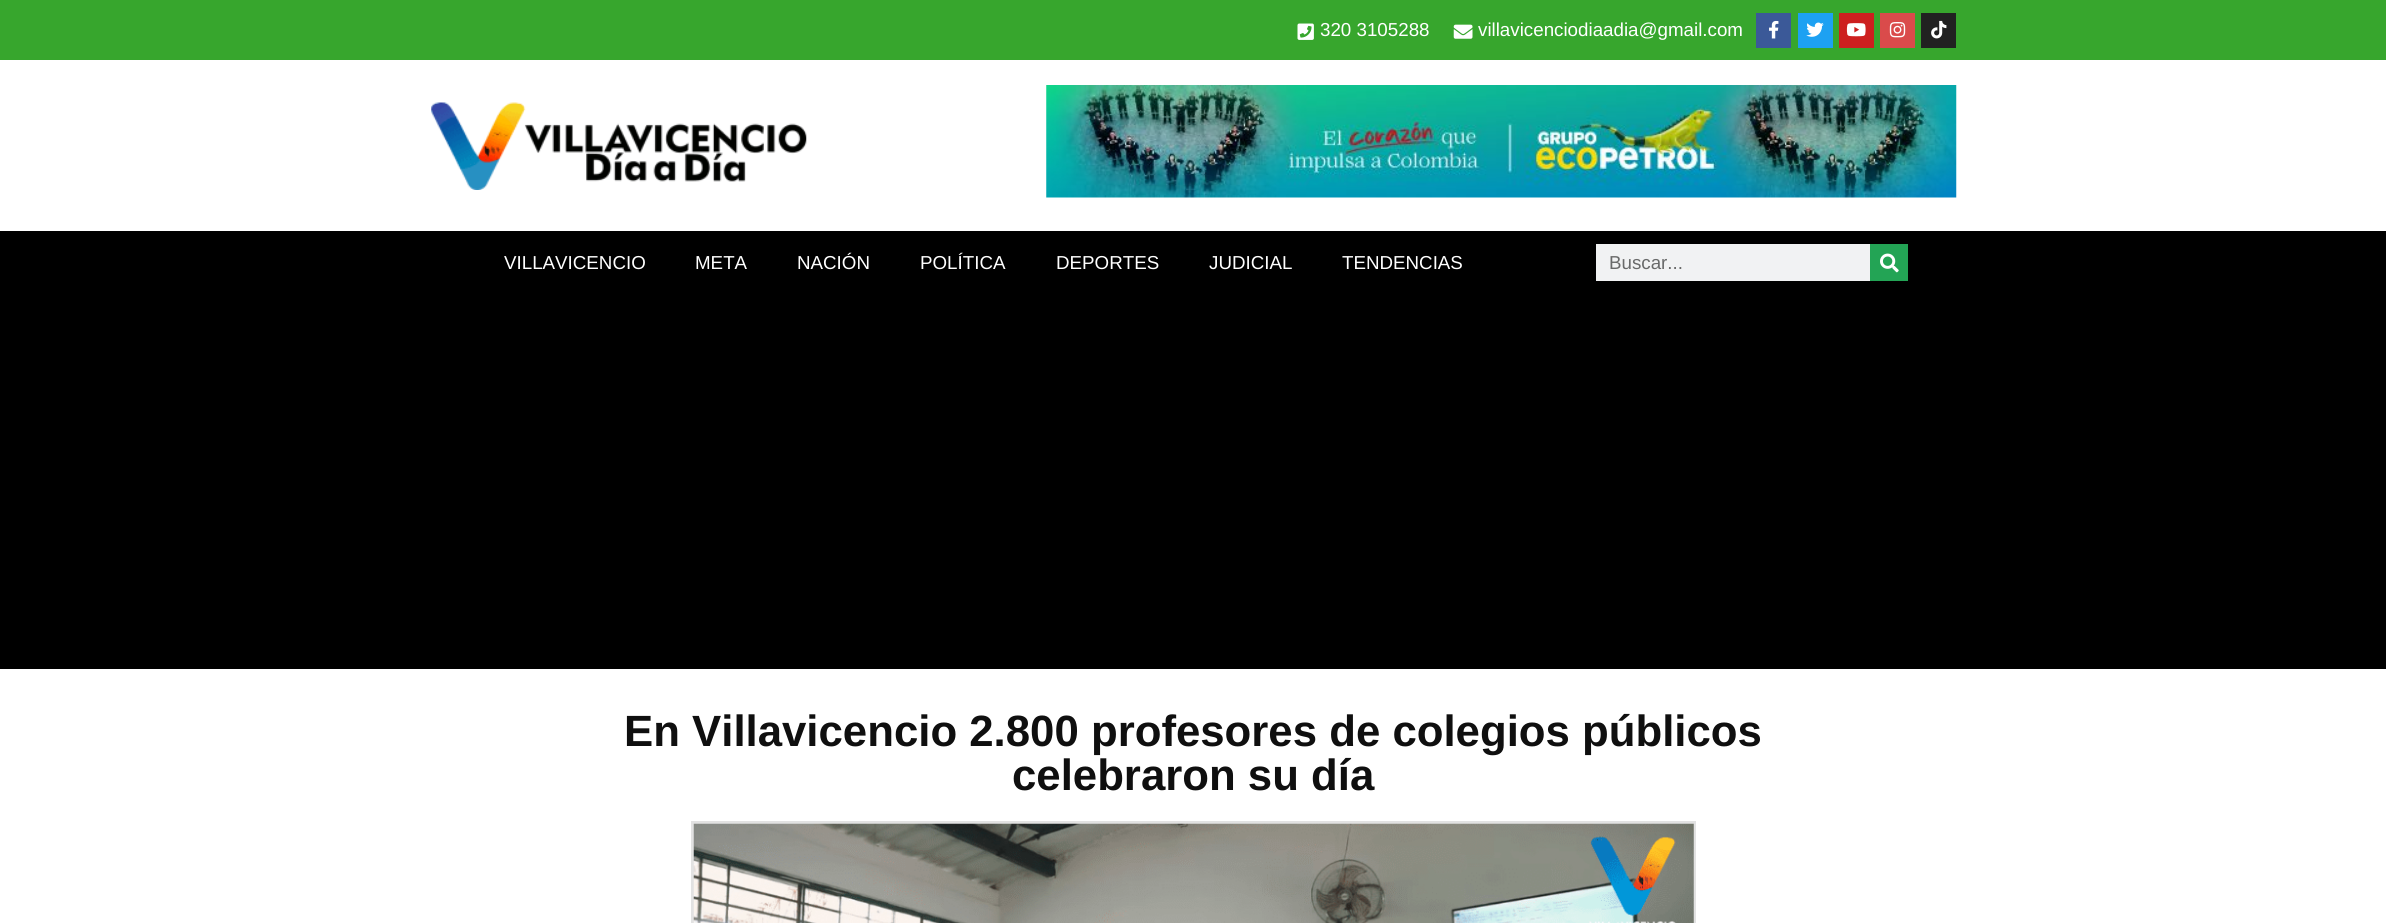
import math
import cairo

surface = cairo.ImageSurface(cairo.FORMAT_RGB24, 2386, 923)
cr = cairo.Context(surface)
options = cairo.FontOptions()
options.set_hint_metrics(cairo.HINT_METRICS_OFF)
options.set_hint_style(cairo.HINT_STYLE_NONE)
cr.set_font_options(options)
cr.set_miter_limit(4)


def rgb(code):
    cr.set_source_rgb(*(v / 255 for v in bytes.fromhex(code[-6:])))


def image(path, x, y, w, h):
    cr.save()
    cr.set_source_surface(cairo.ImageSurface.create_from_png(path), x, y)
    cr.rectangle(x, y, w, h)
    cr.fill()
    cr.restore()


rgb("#ffffff")
cr.paint()
rgb("#37a62d")
cr.rectangle(0, 0, 2386, 60)
cr.fill()
image("img/1.png", 1297, 23, 17, 17)
image("img/2.png", 1453, 24, 20, 15)
rgb("#3b5998")
cr.rectangle(1756, 13, 35, 35)
cr.fill()
image("img/3.png", 1769, 20, 10, 19)
rgb("#1da1f2")
cr.rectangle(1798, 13, 35, 35)
cr.fill()
image("img/4.png", 1806, 22, 18, 15)
rgb("#cd201f")
cr.rectangle(1839, 13, 35, 35)
cr.fill()
image("img/5.png", 1846, 23, 20, 14)
rgb("#da4b4b")
cr.rectangle(1880, 13, 35, 35)
cr.fill()
image("img/6.png", 1889, 22, 17, 16)
rgb("#212121")
cr.rectangle(1921, 13, 35, 35)
cr.fill()
image("img/7.png", 1931, 20, 16, 19)
image("img/8.png", 431, 102, 376, 88)
image("img/9.png", 1046, 85, 911, 113)
for x, y, w, h, color in [
    (0, 231, 2386, 438, "#000000"),
    (1596, 244, 274, 37, "#f1f2f3"),
    (1870, 244, 38, 37, "#23a455"),
]:
    rgb(color)
    cr.rectangle(x, y, w, h)
    cr.fill()
image("img/10.png", 1880, 253, 19, 20)
cr.rectangle(692.5, 822.5, 1002, 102)
rgb("#e2e2e2")
cr.set_line_width(3)
cr.stroke()
image("img/11.png", 693, 823, 1001, 100)
cr.select_font_face("Liberation Sans")
cr.set_font_size(18.75)
rgb("#ffffff")
for x, y, s in [
    (1320, 36, "320 3105288"),
    (1478, 36, "villavicenciodiaadia@gmail.com"),
    (504, 269, "VILLAVICENCIO"),
    (695, 269, "META"),
    (797, 269, "NACIÓN"),
    (920, 269, "POLÍTICA"),
    (1056, 269, "DEPORTES"),
    (1209, 269, "JUDICIAL"),
    (1342, 269, "TENDENCIAS"),
]:
    cr.move_to(x, y)
    cr.show_text(s)
rgb("#696a6a")
cr.move_to(1609, 269)
cr.show_text("Buscar...")
cr.select_font_face("Liberation Sans", cairo.FONT_SLANT_NORMAL, cairo.FONT_WEIGHT_BOLD)
cr.set_font_size(43.75)
rgb("#0f0f0f")
cr.move_to(624, 746)
cr.show_text("En Villavicencio 2.800 profesores de colegios públicos")
cr.move_to(1012, 790)
cr.show_text("celebraron su día")
surface.write_to_png("page.png")
